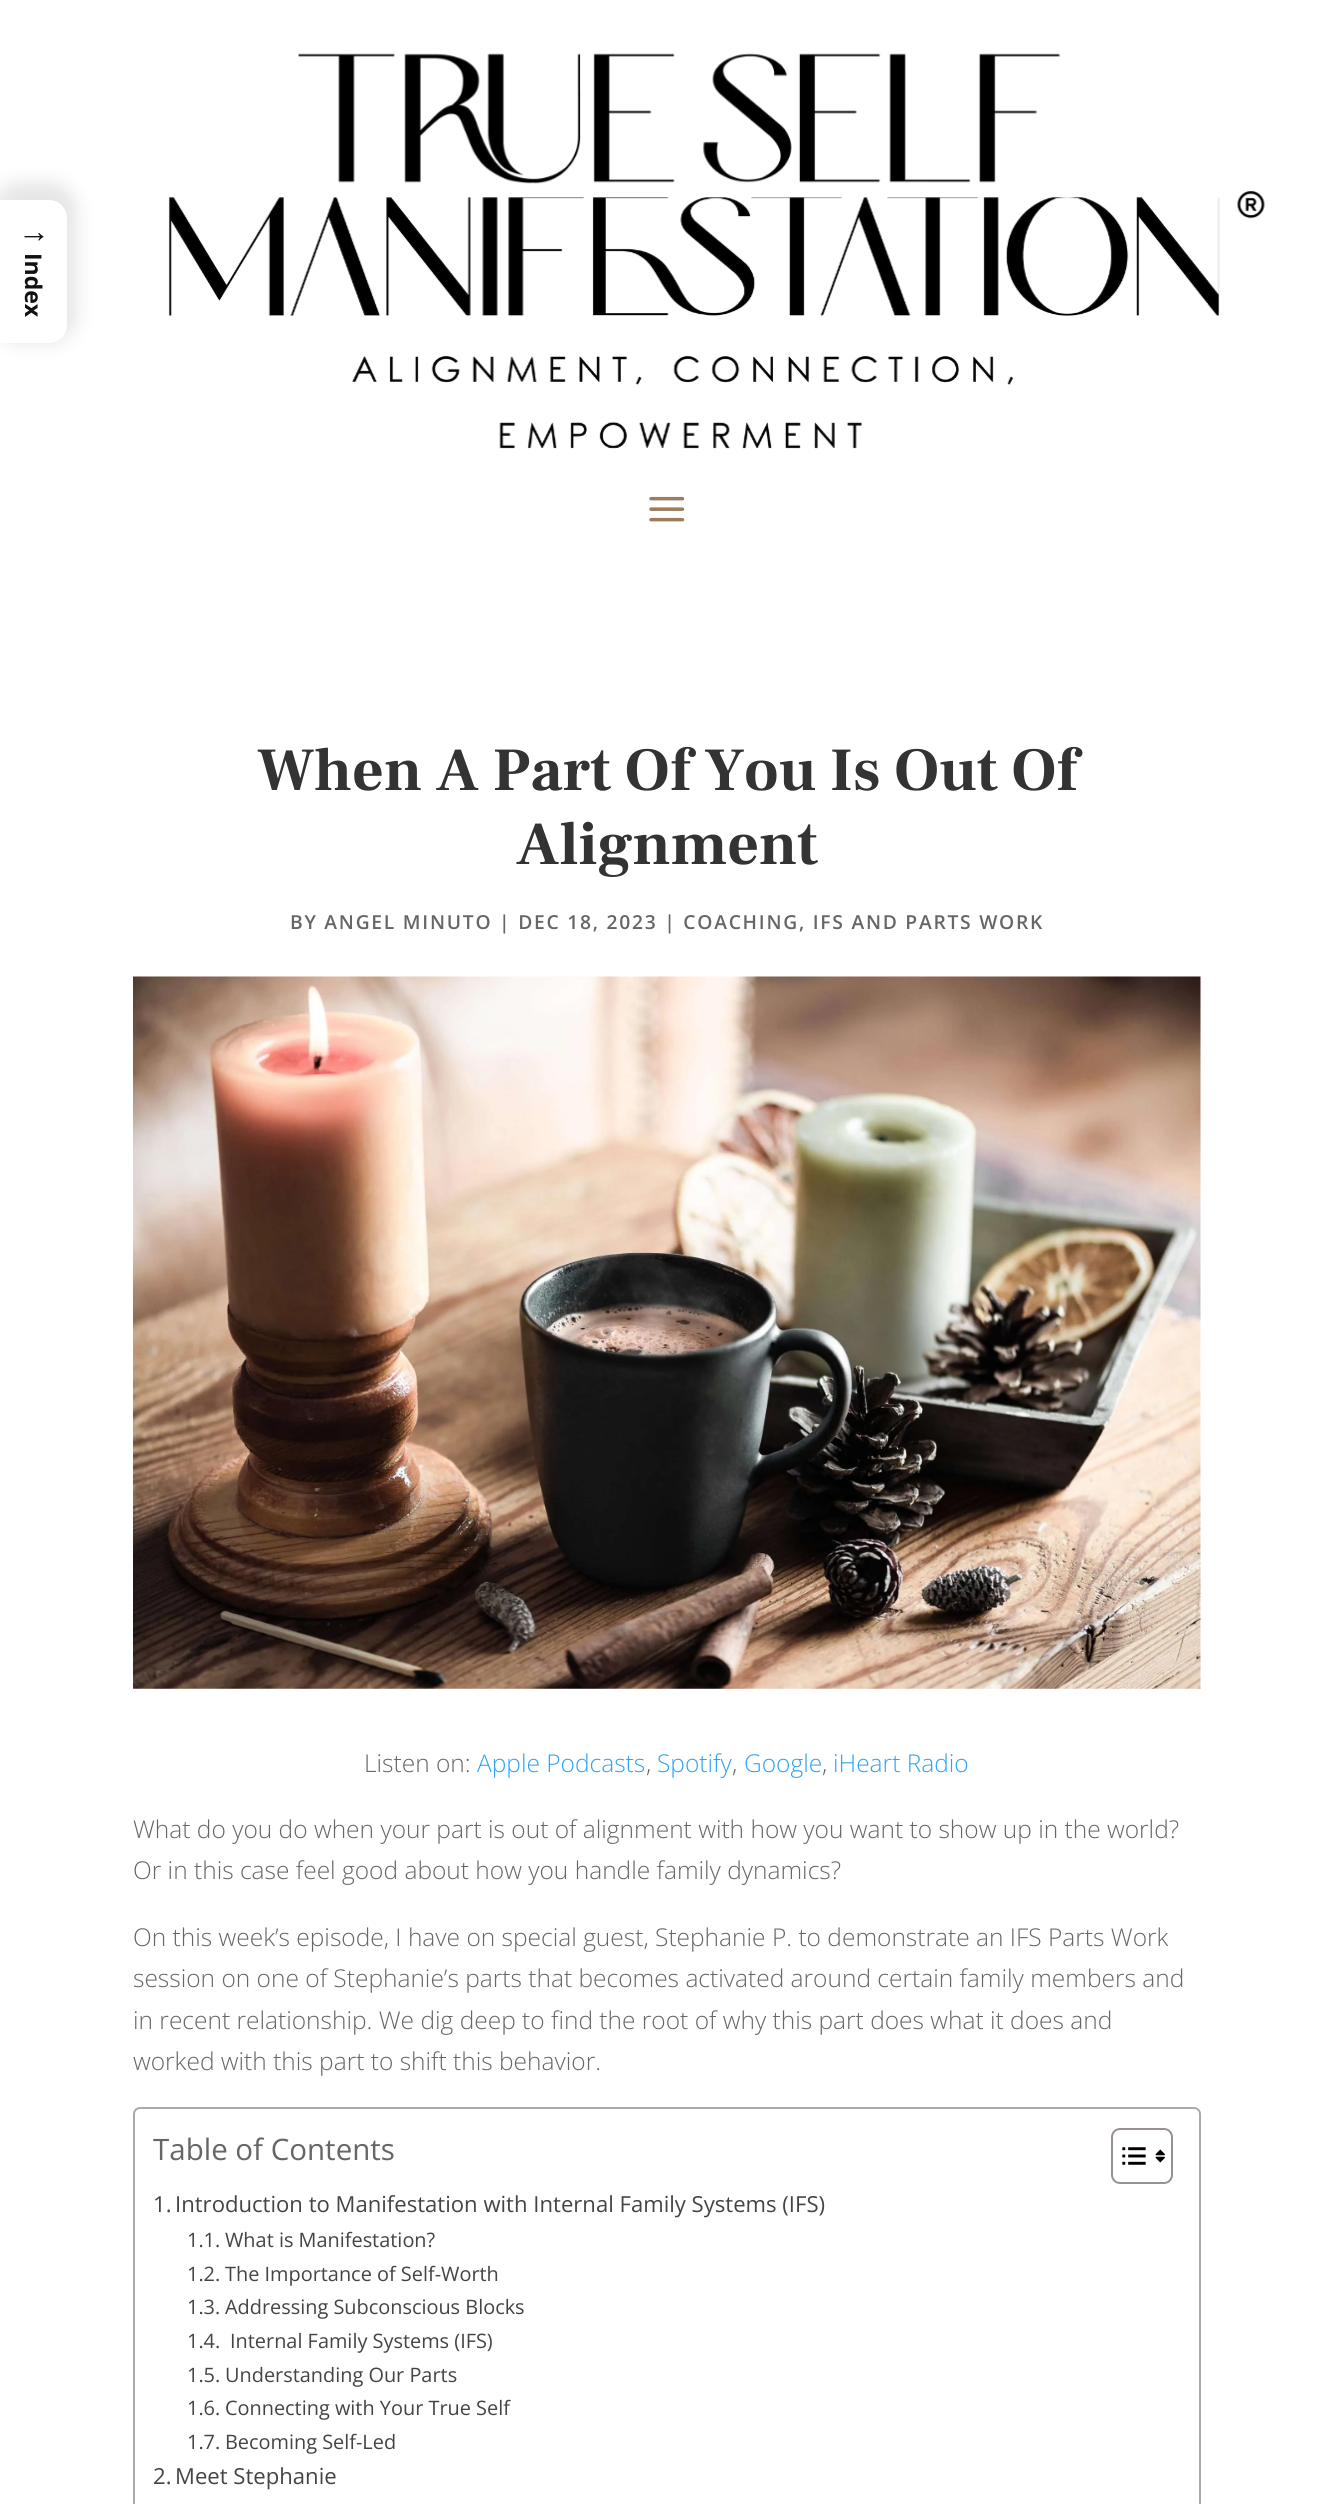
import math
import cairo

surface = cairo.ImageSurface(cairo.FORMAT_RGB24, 1332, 2504)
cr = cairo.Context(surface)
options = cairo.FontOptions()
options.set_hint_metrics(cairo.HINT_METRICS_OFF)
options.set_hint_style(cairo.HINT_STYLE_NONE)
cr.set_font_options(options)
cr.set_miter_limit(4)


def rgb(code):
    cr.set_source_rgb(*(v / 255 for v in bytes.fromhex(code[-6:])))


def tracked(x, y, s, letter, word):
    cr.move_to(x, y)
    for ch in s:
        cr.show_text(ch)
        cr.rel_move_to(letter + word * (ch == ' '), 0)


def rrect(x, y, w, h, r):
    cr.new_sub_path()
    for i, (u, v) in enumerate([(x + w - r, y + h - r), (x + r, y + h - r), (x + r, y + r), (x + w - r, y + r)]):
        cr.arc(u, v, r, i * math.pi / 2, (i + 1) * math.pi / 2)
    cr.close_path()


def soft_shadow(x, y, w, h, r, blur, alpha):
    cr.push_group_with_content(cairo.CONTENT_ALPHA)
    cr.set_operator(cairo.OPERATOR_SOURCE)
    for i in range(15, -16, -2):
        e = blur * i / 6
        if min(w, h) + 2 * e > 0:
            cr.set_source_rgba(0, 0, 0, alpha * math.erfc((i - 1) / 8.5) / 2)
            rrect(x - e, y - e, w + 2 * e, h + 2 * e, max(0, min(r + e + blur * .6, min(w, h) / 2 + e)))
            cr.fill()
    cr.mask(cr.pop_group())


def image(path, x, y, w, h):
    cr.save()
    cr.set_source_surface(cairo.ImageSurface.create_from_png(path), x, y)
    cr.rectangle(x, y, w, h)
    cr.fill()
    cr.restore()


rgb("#ffffff")
cr.paint()
rgb("#000000")
soft_shadow(-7, 182, 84, 161, 26, 9, 0.1)
rgb("#ffffff")
cr.new_path()
cr.move_to(0, 200)
cr.line_to(49, 200)
cr.curve_to(59, 200, 67, 208, 67, 218)
cr.line_to(67, 325)
cr.curve_to(67, 335, 59, 343, 49, 343)
cr.line_to(0, 343)
cr.close_path()
cr.fill()
image("img/1.png", 168, 53, 1097, 396)
image("img/2.png", 649, 496, 36, 26)
image("img/3.png", 133, 976, 1068, 713)
rrect(134, 2108, 1066, 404, 6)
rgb("#aaaaaa")
cr.stroke()
rrect(1112, 2129, 60, 54, 8)
rgb("#999191")
cr.stroke()
image("img/4.png", 1122, 2147, 24, 18)
image("img/5.png", 1155, 2149, 10, 14)
cr.select_font_face("Liberation Sans", cairo.FONT_SLANT_NORMAL, cairo.FONT_WEIGHT_BOLD)
cr.set_font_size(32)
rgb("#111111")
cr.move_to(18, 242)
cr.show_text("→")
cr.select_font_face("Open Sans", cairo.FONT_SLANT_NORMAL, cairo.FONT_WEIGHT_BOLD)
cr.set_font_size(23)
cr.save()
cr.translate(25, 253)
cr.rotate(90 * math.pi / 180)
cr.move_to(0, 0)
cr.show_text("Index")
cr.restore()
cr.select_font_face("Frank Ruhl Libre", cairo.FONT_SLANT_NORMAL, cairo.FONT_WEIGHT_BOLD)
cr.set_font_size(61.25)
rgb("#333333")
cr.move_to(257, 790)
cr.show_text("When A Part Of You Is Out Of")
cr.move_to(516, 864)
cr.show_text("Alignment")
cr.select_font_face("Open Sans SemiBold")
cr.set_font_size(19.25)
rgb("#666666")
tracked(290, 929, "BY ANGEL MINUTO | DEC 18, 2023 | COACHING, IFS AND PARTS WORK", 1.75, 0)
cr.select_font_face("Open Sans Light")
cr.set_font_size(24.5)
cr.move_to(364, 1772)
cr.show_text("Listen on:")
rgb("#2ea3f2")
cr.move_to(477, 1772)
cr.show_text("Apple Podcasts")
rgb("#666666")
cr.move_to(646, 1772)
cr.show_text(",")
rgb("#2ea3f2")
cr.move_to(657, 1772)
cr.show_text("Spotify")
rgb("#666666")
cr.move_to(732, 1772)
cr.show_text(",")
rgb("#2ea3f2")
cr.move_to(744, 1772)
cr.show_text("Google")
rgb("#666666")
cr.move_to(822, 1772)
cr.show_text(",")
rgb("#2ea3f2")
cr.move_to(833, 1772)
cr.show_text("iHeart Radio")
rgb("#666666")
for x, y, s in [
    (133, 1838, "What do you do when your part is out of alignment with how you want to show up in the world?"),
    (133, 1879, "Or in this case feel good about how you handle family dynamics?"),
    (133, 1946, "On this week’s episode, I have on special guest, Stephanie P. to demonstrate an IFS Parts Work"),
    (133, 1987, "session on one of Stephanie’s parts that becomes activated around certain family members and"),
    (133, 2029, "in recent relationship. We dig deep to find the root of why this part does what it does and"),
    (133, 2070, "worked with this part to shift this behavior."),
]:
    cr.move_to(x, y)
    cr.show_text(s)
cr.select_font_face("Open Sans")
cr.set_font_size(29.5)
cr.move_to(153, 2160)
cr.show_text("Table of Contents")
cr.set_font_size(22.1)
rgb("#444444")
cr.move_to(153, 2212)
cr.show_text("1.")
cr.move_to(175, 2212)
cr.show_text("Introduction to Manifestation with Internal Family Systems (IFS)")
cr.set_font_size(19.9)
for x, y, s in [
    (187, 2247, "1.1."),
    (225, 2247, "What is Manifestation?"),
    (187, 2281, "1.2."),
    (225, 2281, "The Importance of Self-Worth"),
    (187, 2314, "1.3."),
    (225, 2314, "Addressing Subconscious Blocks"),
    (187, 2348, "1.4."),
    (230, 2348, "Internal Family Systems (IFS)"),
    (187, 2382, "1.5."),
    (225, 2382, "Understanding Our Parts"),
    (187, 2415, "1.6."),
    (225, 2415, "Connecting with Your True Self"),
    (187, 2449, "1.7."),
    (225, 2449, "Becoming Self-Led"),
]:
    cr.move_to(x, y)
    cr.show_text(s)
cr.set_font_size(22.1)
cr.move_to(153, 2484)
cr.show_text("2.")
cr.move_to(175, 2484)
cr.show_text("Meet Stephanie")
surface.write_to_png("page.png")
